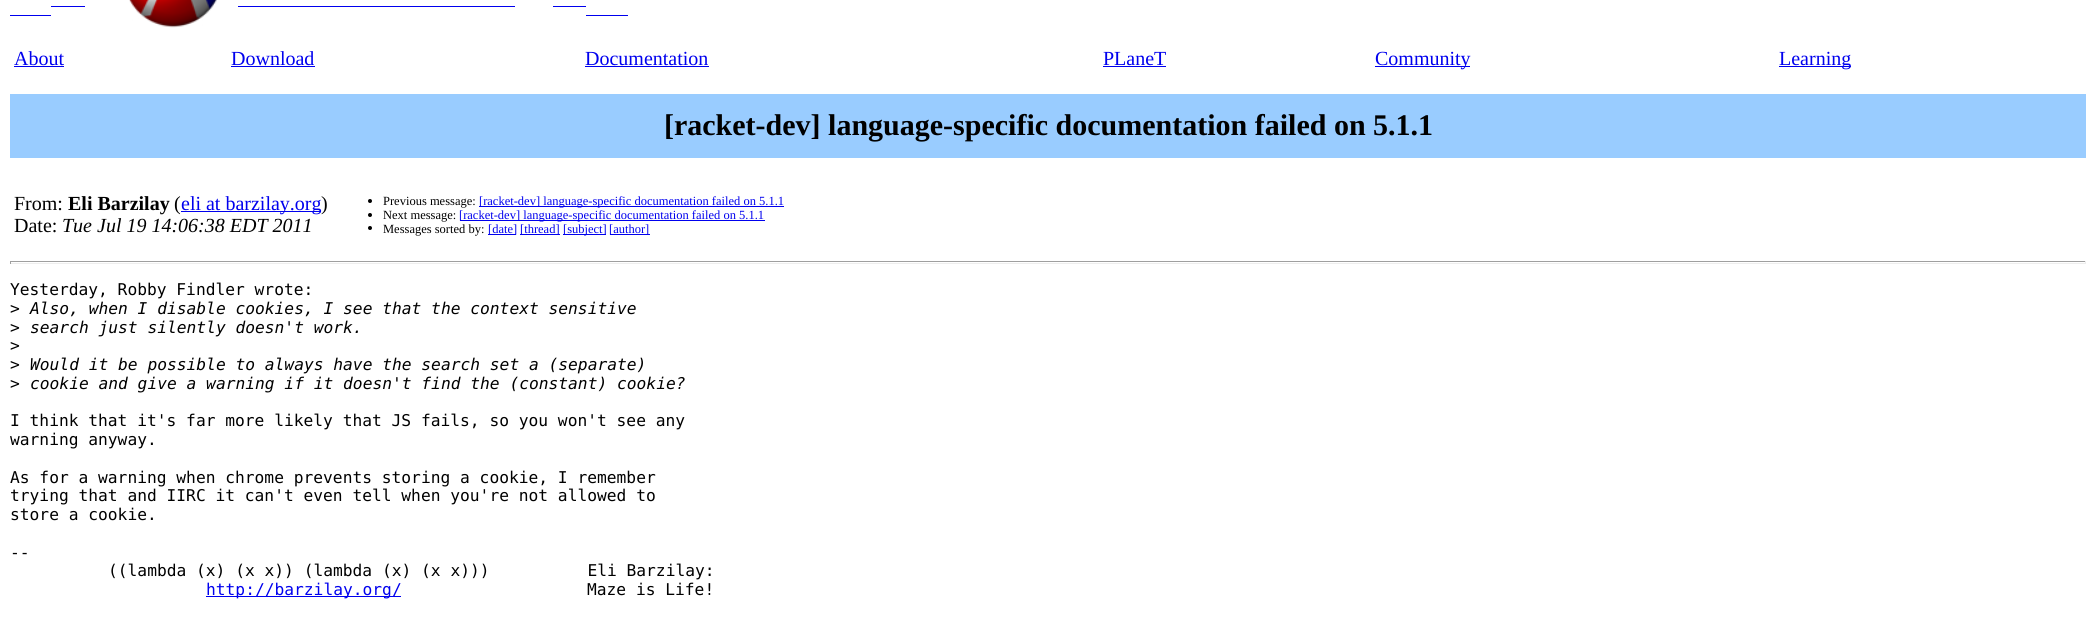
import math
import cairo

surface = cairo.ImageSurface(cairo.FORMAT_RGB24, 2096, 632)
cr = cairo.Context(surface)
options = cairo.FontOptions()
options.set_hint_metrics(cairo.HINT_METRICS_OFF)
options.set_hint_style(cairo.HINT_STYLE_NONE)
cr.set_font_options(options)
cr.set_miter_limit(4)


def rgb(code):
    cr.set_source_rgb(*(v / 255 for v in bytes.fromhex(code[-6:])))


def image(path, x, y, w, h):
    cr.save()
    cr.set_source_surface(cairo.ImageSurface.create_from_png(path), x, y)
    cr.rectangle(x, y, w, h)
    cr.fill()
    cr.restore()


rgb("#ffffff")
cr.paint()
rgb("#0000ee")
cr.rectangle(51, 6, 34, 1)
cr.fill()
image("img/1.png", 129, 0, 88, 28)
for x, y, w, h, color in [
    (238, 6, 277, 1, "#0000ee"),
    (553, 6, 33, 1, "#0000ee"),
    (10, 15, 41, 1, "#0000ee"),
    (586, 15, 42, 1, "#0000ee"),
    (14, 66, 50, 1, "#0000ee"),
    (231, 66, 84, 1, "#0000ee"),
    (585, 66, 124, 1, "#0000ee"),
    (1103, 66, 63, 1, "#0000ee"),
    (1375, 66, 95, 1, "#0000ee"),
    (1779, 66, 72, 1, "#0000ee"),
    (10, 94, 2076, 64, "#99ccff"),
    (181, 211, 140, 1, "#0000ee"),
]:
    rgb(color)
    cr.rectangle(x, y, w, h)
    cr.fill()
rgb("#000000")
cr.arc(370, 201, 2, 0, 2 * math.pi)
cr.fill()
rgb("#0000ee")
cr.rectangle(479, 206, 305, 1)
cr.fill()
rgb("#000000")
cr.arc(370, 215, 2, 0, 2 * math.pi)
cr.fill()
rgb("#0000ee")
cr.rectangle(460, 220, 305, 1)
cr.fill()
rgb("#000000")
cr.arc(370, 228, 2, 0, 2 * math.pi)
cr.fill()
for x, y, w, h, color in [
    (488, 234, 28, 1, "#0000ee"),
    (520, 234, 40, 1, "#0000ee"),
    (563, 234, 43, 1, "#0000ee"),
    (610, 234, 40, 1, "#0000ee"),
    (10, 261, 2076, 1, "#9f9f9f"),
    (2085, 261, 1, 3, "#eeeeee"),
    (10, 263, 2076, 1, "#eeeeee"),
    (10, 261, 1, 3, "#9f9f9f"),
    (206, 596, 195, 1, "#0000ee"),
]:
    rgb(color)
    cr.rectangle(x, y, w, h)
    cr.fill()
cr.select_font_face("Liberation Serif")
cr.set_font_size(20)
for x, y, s in [
    (14, 65, "About"),
    (231, 65, "Download"),
    (585, 65, "Documentation"),
    (1103, 65, "PLaneT"),
    (1375, 65, "Community"),
    (1779, 65, "Learning"),
]:
    cr.move_to(x, y)
    cr.show_text(s)
cr.select_font_face("Liberation Serif", cairo.FONT_SLANT_NORMAL, cairo.FONT_WEIGHT_BOLD)
cr.set_font_size(30)
rgb("#000000")
cr.move_to(664, 135)
cr.show_text("[racket-dev] language-specific documentation failed on 5.1.1")
cr.select_font_face("Liberation Serif")
cr.set_font_size(20)
cr.move_to(14, 210)
cr.show_text("From:")
cr.select_font_face("Liberation Serif", cairo.FONT_SLANT_NORMAL, cairo.FONT_WEIGHT_BOLD)
cr.move_to(68, 210)
cr.show_text("Eli Barzilay")
cr.select_font_face("Liberation Serif")
cr.move_to(174, 210)
cr.show_text("(")
rgb("#0000ee")
cr.move_to(181, 210)
cr.show_text("eli at barzilay.org")
rgb("#000000")
cr.move_to(321, 210)
cr.show_text(")")
cr.move_to(14, 232)
cr.show_text("Date:")
cr.select_font_face("Liberation Serif", cairo.FONT_SLANT_ITALIC)
cr.move_to(62, 232)
cr.show_text("Tue Jul 19 14:06:38 EDT 2011")
cr.select_font_face("Liberation Serif")
cr.set_font_size(12.5)
cr.move_to(383, 205)
cr.show_text("Previous message:")
rgb("#0000ee")
cr.move_to(479, 205)
cr.show_text("[racket-dev] language-specific documentation failed on 5.1.1")
rgb("#000000")
cr.move_to(383, 219)
cr.show_text("Next message:")
rgb("#0000ee")
cr.move_to(459, 219)
cr.show_text("[racket-dev] language-specific documentation failed on 5.1.1")
rgb("#000000")
cr.move_to(383, 233)
cr.show_text("Messages sorted by:")
rgb("#0000ee")
for x, y, s in [
    (488, 233, "[date]"),
    (520, 233, "[thread]"),
    (563, 233, "[subject]"),
    (609, 233, "[author]"),
]:
    cr.move_to(x, y)
    cr.show_text(s)
cr.select_font_face("DejaVu Sans Mono")
cr.set_font_size(16.25)
rgb("#000000")
cr.move_to(10, 295)
cr.show_text("Yesterday, Robby Findler wrote:")
cr.move_to(10, 314)
cr.show_text(">")
cr.select_font_face("DejaVu Sans Mono", cairo.FONT_SLANT_ITALIC)
cr.move_to(30, 314)
cr.show_text("Also, when I disable cookies, I see that the context sensitive")
cr.select_font_face("DejaVu Sans Mono")
cr.move_to(10, 333)
cr.show_text(">")
cr.select_font_face("DejaVu Sans Mono", cairo.FONT_SLANT_ITALIC)
cr.move_to(30, 333)
cr.show_text("search just silently doesn't work.")
cr.select_font_face("DejaVu Sans Mono")
cr.move_to(10, 351)
cr.show_text(">")
cr.move_to(10, 370)
cr.show_text(">")
cr.select_font_face("DejaVu Sans Mono", cairo.FONT_SLANT_ITALIC)
cr.move_to(30, 370)
cr.show_text("Would it be possible to always have the search set a (separate)")
cr.select_font_face("DejaVu Sans Mono")
cr.move_to(10, 389)
cr.show_text(">")
cr.select_font_face("DejaVu Sans Mono", cairo.FONT_SLANT_ITALIC)
cr.move_to(30, 389)
cr.show_text("cookie and give a warning if it doesn't find the (constant) cookie?")
cr.select_font_face("DejaVu Sans Mono")
for x, y, s in [
    (10, 426, "I think that it's far more likely that JS fails, so you won't see any"),
    (10, 445, "warning anyway."),
    (10, 483, "As for a warning when chrome prevents storing a cookie, I remember"),
    (10, 501, "trying that and IIRC it can't even tell when you're not allowed to"),
    (10, 520, "store a cookie."),
    (10, 558, "--"),
    (108, 576, "((lambda (x) (x x)) (lambda (x) (x x)))          Eli Barzilay:"),
]:
    cr.move_to(x, y)
    cr.show_text(s)
rgb("#0000ee")
cr.move_to(206, 595)
cr.show_text("http://barzilay.org/")
rgb("#000000")
cr.move_to(587, 595)
cr.show_text("Maze is Life!")
surface.write_to_png("page.png")
